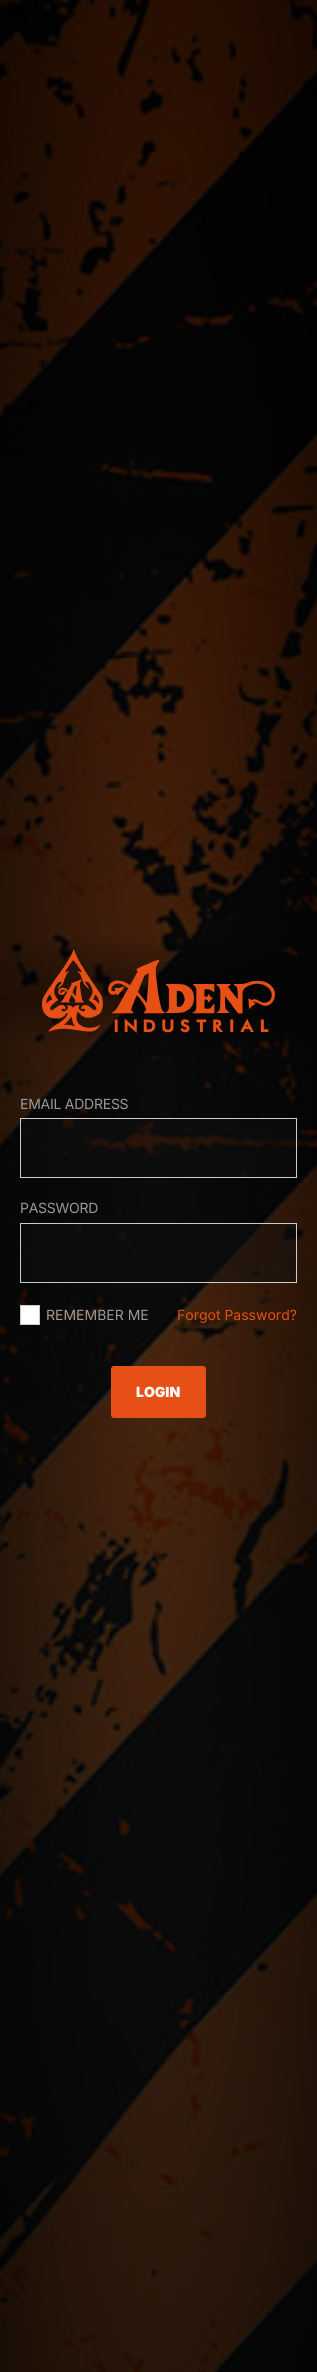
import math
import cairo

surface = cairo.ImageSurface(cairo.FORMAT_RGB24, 317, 2372)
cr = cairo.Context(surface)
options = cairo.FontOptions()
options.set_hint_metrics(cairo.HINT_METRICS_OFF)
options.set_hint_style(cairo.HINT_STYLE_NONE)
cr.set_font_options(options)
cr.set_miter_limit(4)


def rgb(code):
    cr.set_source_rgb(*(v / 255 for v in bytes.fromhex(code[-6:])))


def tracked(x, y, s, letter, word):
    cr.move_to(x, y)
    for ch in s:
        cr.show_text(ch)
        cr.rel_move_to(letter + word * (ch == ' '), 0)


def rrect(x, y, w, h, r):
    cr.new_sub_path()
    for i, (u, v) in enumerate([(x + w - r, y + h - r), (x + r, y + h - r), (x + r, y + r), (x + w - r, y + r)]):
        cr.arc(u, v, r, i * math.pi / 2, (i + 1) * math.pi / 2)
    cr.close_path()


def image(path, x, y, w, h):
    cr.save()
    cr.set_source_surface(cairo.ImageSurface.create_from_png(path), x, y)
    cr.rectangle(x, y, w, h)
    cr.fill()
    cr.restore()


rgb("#ffffff")
cr.paint()
image("img/1.png", 0, 0, 317, 2372)
image("img/2.png", 42, 949, 233, 84)
cr.set_source_rgba(0.067, 0.067, 0.067, 0.5)
cr.rectangle(20.5, 1118.5, 276, 59)
cr.fill_preserve()
rgb("#cccccc")
cr.set_line_width(1)
cr.stroke()
cr.set_source_rgba(0.067, 0.067, 0.067, 0.5)
cr.rectangle(20.5, 1223.5, 276, 59)
cr.fill_preserve()
rgb("#cccccc")
cr.stroke()
rgb("#ffffff")
cr.rectangle(20.5, 1305.5, 19, 19)
cr.fill_preserve()
rgb("#cccccc")
cr.stroke()
rgb("#e64f15")
rrect(111.5, 1366.5, 94, 51, 2.5)
cr.fill_preserve()
cr.stroke()
cr.select_font_face("Inter")
cr.set_font_size(14)
rgb("#999999")
tracked(20, 1109, "EMAIL ADDRESS", -0.25, 0)
tracked(20, 1213, "PASSWORD", -0.25, 0)
cr.move_to(46, 1320)
cr.show_text("REMEMBER ME")
rgb("#e64f15")
cr.move_to(177, 1320)
cr.show_text("Forgot Password?")
cr.select_font_face("Inter Black")
rgb("#ffffff")
cr.move_to(136, 1397)
cr.show_text("LOGIN")
surface.write_to_png("page.png")
